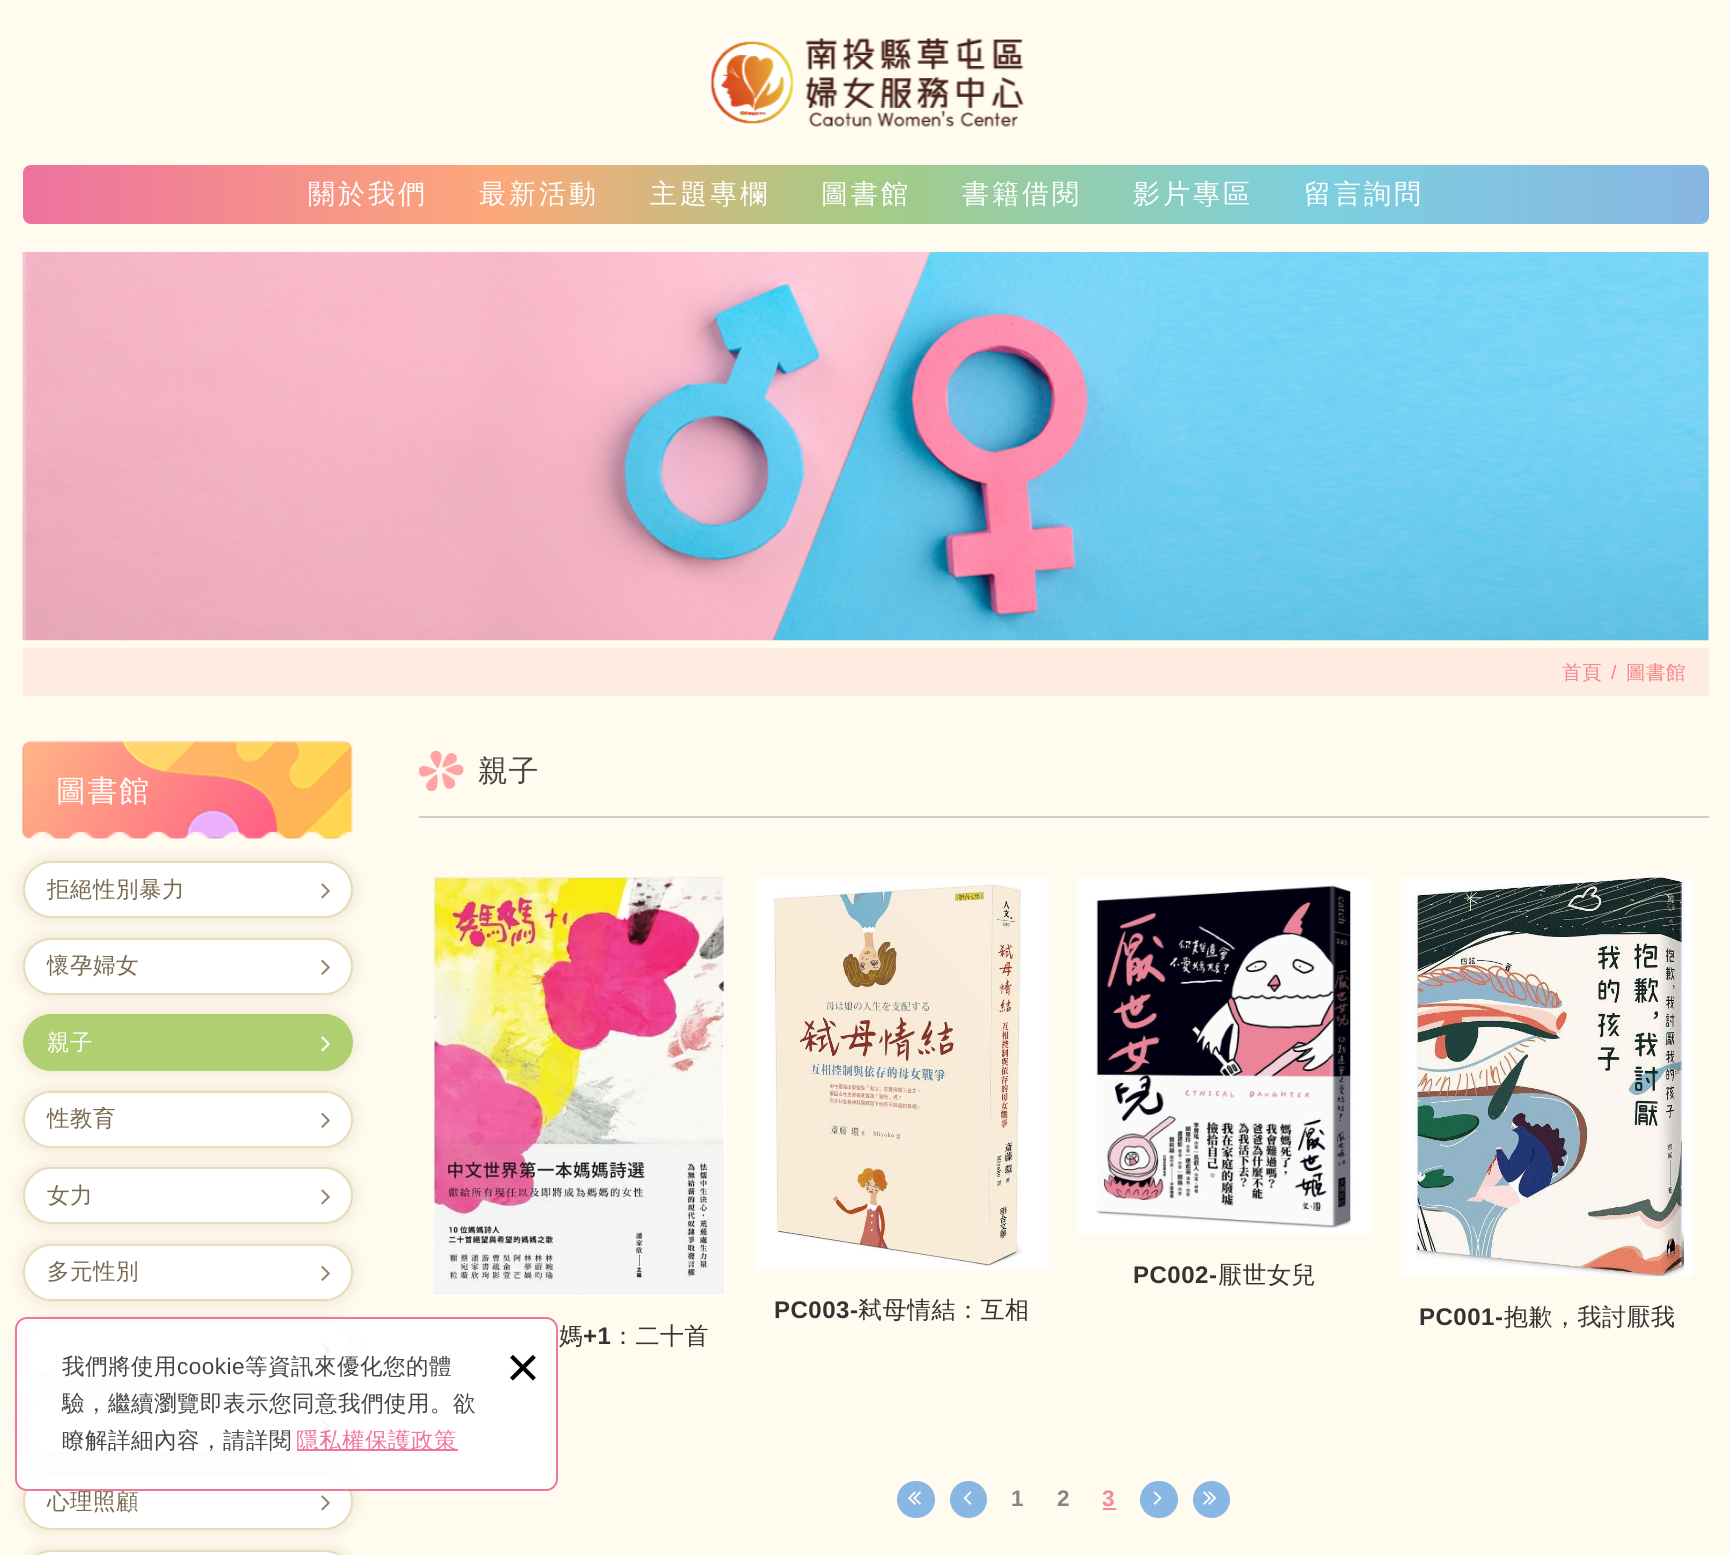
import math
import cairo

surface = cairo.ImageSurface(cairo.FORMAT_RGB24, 1730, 1555)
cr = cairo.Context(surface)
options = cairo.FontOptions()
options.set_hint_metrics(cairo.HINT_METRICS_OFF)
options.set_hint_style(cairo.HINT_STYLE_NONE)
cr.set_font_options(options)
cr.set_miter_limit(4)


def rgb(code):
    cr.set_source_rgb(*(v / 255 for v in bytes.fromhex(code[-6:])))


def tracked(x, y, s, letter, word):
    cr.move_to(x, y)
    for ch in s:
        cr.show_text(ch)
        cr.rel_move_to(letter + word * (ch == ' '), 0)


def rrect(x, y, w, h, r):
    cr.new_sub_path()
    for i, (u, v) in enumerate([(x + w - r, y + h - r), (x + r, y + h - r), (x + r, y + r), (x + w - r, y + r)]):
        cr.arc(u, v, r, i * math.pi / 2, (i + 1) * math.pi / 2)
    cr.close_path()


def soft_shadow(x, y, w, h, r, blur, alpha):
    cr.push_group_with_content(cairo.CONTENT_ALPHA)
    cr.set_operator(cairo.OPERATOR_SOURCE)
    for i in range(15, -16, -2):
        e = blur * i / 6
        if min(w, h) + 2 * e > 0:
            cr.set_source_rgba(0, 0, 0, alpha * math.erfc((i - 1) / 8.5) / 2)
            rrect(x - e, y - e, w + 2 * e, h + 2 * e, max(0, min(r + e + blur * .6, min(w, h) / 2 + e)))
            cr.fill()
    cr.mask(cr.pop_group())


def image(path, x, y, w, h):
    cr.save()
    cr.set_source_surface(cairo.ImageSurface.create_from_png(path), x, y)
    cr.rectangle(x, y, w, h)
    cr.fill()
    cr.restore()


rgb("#fffbef")
cr.paint()
image("img/1.png", 708, 37, 316, 91)
gradient = cairo.LinearGradient(23, 194, 1709, 194)
gradient.add_color_stop_rgba(0, 0.929, 0.447, 0.624, 1)
gradient.add_color_stop_rgba(0.28, 0.988, 0.659, 0.478, 1)
gradient.add_color_stop_rgba(0.5, 0.647, 0.796, 0.522, 1)
gradient.add_color_stop_rgba(0.77, 0.49, 0.812, 0.875, 1)
gradient.add_color_stop_rgba(1, 0.533, 0.714, 0.886, 1)
cr.set_source(gradient)
rrect(23, 165, 1686, 59, 8)
cr.fill()
image("img/2.png", 22, 252, 1687, 389)
rgb("#feece2")
cr.rectangle(23, 648, 1686, 48)
cr.fill()
image("img/3.png", 22, 741, 331, 98)
rgb("#cdb89c")
soft_shadow(23, 861, 330, 57, 28.5, 7.5, 0.4)
rgb("#ffffff")
rrect(24, 862, 328, 55, 27.5)
cr.fill_preserve()
rgb("#e8dbbb")
cr.stroke()
image("img/4.png", 321, 883, 9, 16)
rgb("#cdb89c")
soft_shadow(23, 938, 330, 57, 28.5, 7.5, 0.4)
rgb("#ffffff")
rrect(24, 939, 328, 55, 27.5)
cr.fill_preserve()
rgb("#e8dbbb")
cr.stroke()
image("img/5.png", 321, 959, 9, 16)
rgb("#cdb89c")
soft_shadow(23, 1014, 330, 57, 28.5, 7.5, 0.4)
rgb("#b0cf70")
rrect(24, 1015, 328, 55, 27.5)
cr.fill_preserve()
cr.stroke()
image("img/6.png", 321, 1036, 9, 16)
rgb("#cdb89c")
soft_shadow(23, 1091, 330, 57, 28.5, 7.5, 0.4)
rgb("#ffffff")
rrect(24, 1092, 328, 55, 27.5)
cr.fill_preserve()
rgb("#e8dbbb")
cr.stroke()
image("img/5.png", 321, 1112, 9, 16)
rgb("#cdb89c")
soft_shadow(23, 1167, 330, 57, 28.5, 7.5, 0.4)
rgb("#ffffff")
rrect(24, 1168, 328, 55, 27.5)
cr.fill_preserve()
rgb("#e8dbbb")
cr.stroke()
image("img/4.png", 321, 1189, 9, 16)
rgb("#cdb89c")
soft_shadow(23, 1244, 330, 57, 28.5, 7.5, 0.4)
rgb("#ffffff")
rrect(24, 1245, 328, 55, 27.5)
cr.fill_preserve()
rgb("#e8dbbb")
cr.stroke()
image("img/5.png", 321, 1265, 9, 16)
rgb("#cdb89c")
soft_shadow(23, 1320, 330, 57, 28.5, 7.5, 0.4)
rgb("#ffffff")
rrect(24, 1321, 328, 55, 27.5)
cr.fill_preserve()
rgb("#e8dbbb")
cr.stroke()
image("img/4.png", 321, 1342, 9, 16)
rgb("#cdb89c")
soft_shadow(23, 1397, 330, 57, 28.5, 7.5, 0.4)
rgb("#ffffff")
rrect(24, 1398, 328, 55, 27.5)
cr.fill_preserve()
rgb("#e8dbbb")
cr.stroke()
image("img/5.png", 321, 1418, 9, 16)
rgb("#cdb89c")
soft_shadow(23, 1473, 330, 57, 28.5, 7.5, 0.4)
rgb("#ffffff")
rrect(24, 1474, 328, 55, 27.5)
cr.fill_preserve()
rgb("#e8dbbb")
cr.stroke()
image("img/4.png", 321, 1495, 9, 16)
rgb("#cdb89c")
soft_shadow(23, 1550, 330, 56, 28.5, 7.5, 0.4)
rgb("#ffffff")
rrect(24, 1551, 328, 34, 27.5)
cr.fill_preserve()
rgb("#e8dbbb")
cr.stroke()
rgb("#cccccc")
cr.rectangle(419, 816, 1290, 2)
cr.fill()
image("img/7.png", 419, 750, 45, 41)
image("img/8.png", 1078, 877, 293, 358)
image("img/9.png", 756, 877, 293, 394)
image("img/10.png", 1401, 877, 293, 400)
image("img/11.png", 433, 877, 293, 419)
rgb("#87b7e2")
rrect(897, 1481, 38, 37, 18.5)
cr.fill()
image("img/12.png", 908, 1491, 13, 14)
cr.arc(968.5, 1499.5, 18.5, 0, 2 * math.pi)
cr.fill()
image("img/13.png", 963, 1491, 9, 14)
rgb("#f68991")
cr.rectangle(1103, 1508, 13, 2)
cr.fill()
rgb("#87b7e2")
rrect(1140, 1481, 38, 37, 18.5)
cr.fill()
image("img/14.png", 1153, 1491, 9, 14)
cr.arc(1211.5, 1499.5, 18.5, 0, 2 * math.pi)
cr.fill()
image("img/15.png", 1203, 1491, 13, 14)
cr.select_font_face("WenQuanYi Zen Hei Medium")
cr.set_font_size(27)
rgb("#ffffff")
for x, y, s in [
    (308, 203, "關於我們"),
    (479, 203, "最新活動"),
    (650, 203, "主題專欄"),
    (821, 203, "圖書館"),
    (962, 203, "書籍借閱"),
    (1133, 203, "影片專區"),
    (1304, 203, "留言詢問"),
]:
    tracked(x, y, s, 3, 0)
cr.set_font_size(19.5)
rgb("#f6838a")
tracked(1562, 679, "首頁", 0.5, 0)
cr.select_font_face("Liberation Sans")
tracked(1611, 679, "/", 0.5, 0)
cr.select_font_face("WenQuanYi Zen Hei Medium")
tracked(1626, 679, "圖書館", 0.5, 0)
cr.set_font_size(30)
rgb("#ffffff")
tracked(56, 801, "圖書館", 1.5, 0)
cr.set_font_size(22.5)
rgb("#796a4e")
tracked(47, 897, "拒絕性別暴力", 0.5, 0)
tracked(47, 973, "懷孕婦女", 0.5, 0)
rgb("#ffffff")
tracked(47, 1050, "親子", 0.5, 0)
rgb("#796a4e")
for x, y, s in [
    (47, 1126, "性教育"),
    (47, 1203, "女力"),
    (47, 1279, "多元性別"),
    (47, 1509, "心理照顧"),
]:
    tracked(x, y, s, 0.5, 0)
cr.set_source_rgba(1, 1, 1, 0.9)
rrect(16, 1318, 541, 172, 11)
cr.fill_preserve()
rgb("#ef769d")
cr.stroke()
cr.select_font_face("Liberation Sans")
cr.set_font_size(58)
rgb("#000000")
cr.move_to(506, 1387)
cr.show_text("×")
rgb("#ef769d")
cr.rectangle(297, 1449, 161, 2)
cr.fill()
cr.select_font_face("WenQuanYi Zen Hei Medium")
cr.set_font_size(22.5)
tracked(296, 1448, "隱私權保護政策", 0.5, 0)
rgb("#444444")
for x, y, s in [
    (62, 1448, "瞭解詳細內容，請詳閱"),
    (62, 1411, "驗，繼續瀏覽即表示您同意我們使用。欲"),
    (245, 1374, "等資訊來優化您的體"),
]:
    tracked(x, y, s, 0.5, 0)
cr.select_font_face("Liberation Sans")
tracked(177, 1374, "cookie", 0.5, 0)
cr.select_font_face("WenQuanYi Zen Hei Medium")
tracked(62, 1374, "我們將使用", 0.5, 0)
cr.set_font_size(30)
tracked(478, 781, "親子", 0.5, 0)
cr.select_font_face("Liberation Sans", cairo.FONT_SLANT_NORMAL, cairo.FONT_WEIGHT_BOLD)
cr.set_font_size(24)
rgb("#333333")
tracked(1133, 1283, "PC002-", 0.5, 0)
cr.select_font_face("WenQuanYi Zen Hei Medium")
tracked(1218, 1283, "厭世女兒", 0.5, 0)
cr.select_font_face("Liberation Sans", cairo.FONT_SLANT_NORMAL, cairo.FONT_WEIGHT_BOLD)
tracked(774, 1318, "PC003-", 0.5, 0)
cr.select_font_face("WenQuanYi Zen Hei Medium")
tracked(858, 1318, "弒母情結：互相", 0.5, 0)
cr.select_font_face("Liberation Sans", cairo.FONT_SLANT_NORMAL, cairo.FONT_WEIGHT_BOLD)
tracked(1419, 1325, "PC001-", 0.5, 0)
cr.select_font_face("WenQuanYi Zen Hei Medium")
tracked(1504, 1325, "抱歉，我討厭我", 0.5, 0)
tracked(559, 1344, "媽", 0.5, 0)
cr.select_font_face("Liberation Sans", cairo.FONT_SLANT_NORMAL, cairo.FONT_WEIGHT_BOLD)
tracked(583, 1344, "+1", 0.5, 0)
cr.select_font_face("WenQuanYi Zen Hei Medium")
tracked(611, 1344, "：二十首", 0.5, 0)
cr.select_font_face("Liberation Sans", cairo.FONT_SLANT_NORMAL, cairo.FONT_WEIGHT_BOLD)
cr.set_font_size(22.5)
rgb("#868686")
tracked(1011, 1506, "1", 0.5, 0)
tracked(1057, 1506, "2", 0.5, 0)
rgb("#f68991")
tracked(1102, 1506, "3", 0.5, 0)
surface.write_to_png("page.png")
